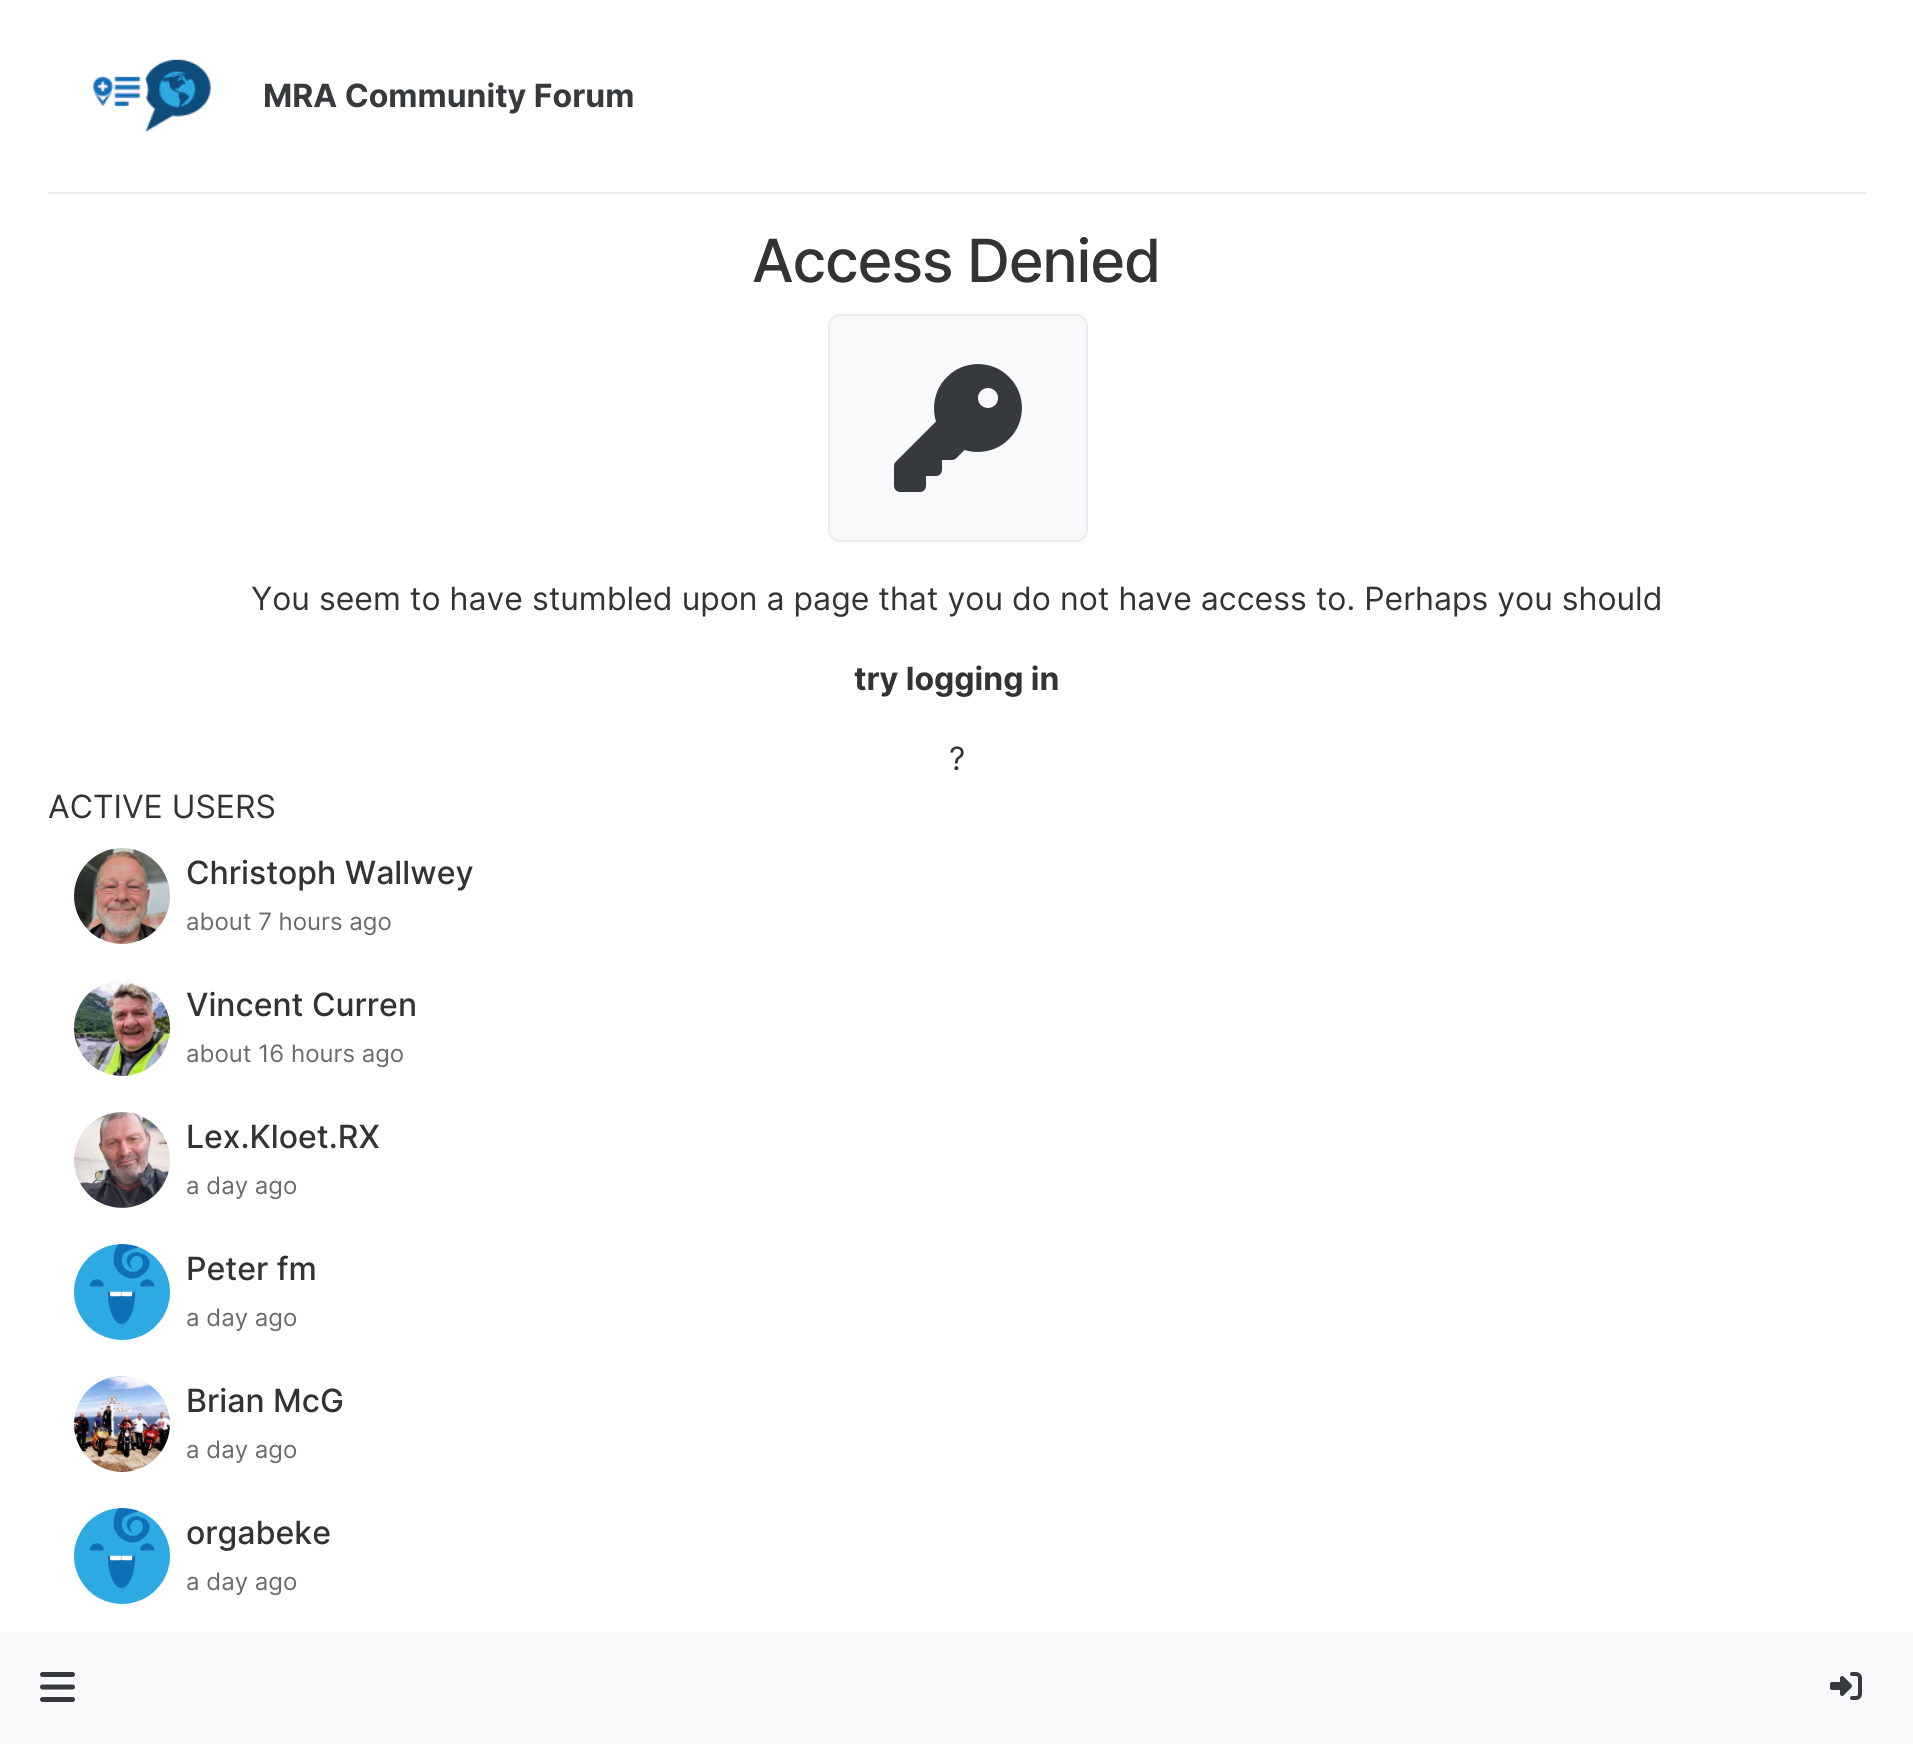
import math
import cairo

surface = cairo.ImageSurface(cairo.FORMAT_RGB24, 1913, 1744)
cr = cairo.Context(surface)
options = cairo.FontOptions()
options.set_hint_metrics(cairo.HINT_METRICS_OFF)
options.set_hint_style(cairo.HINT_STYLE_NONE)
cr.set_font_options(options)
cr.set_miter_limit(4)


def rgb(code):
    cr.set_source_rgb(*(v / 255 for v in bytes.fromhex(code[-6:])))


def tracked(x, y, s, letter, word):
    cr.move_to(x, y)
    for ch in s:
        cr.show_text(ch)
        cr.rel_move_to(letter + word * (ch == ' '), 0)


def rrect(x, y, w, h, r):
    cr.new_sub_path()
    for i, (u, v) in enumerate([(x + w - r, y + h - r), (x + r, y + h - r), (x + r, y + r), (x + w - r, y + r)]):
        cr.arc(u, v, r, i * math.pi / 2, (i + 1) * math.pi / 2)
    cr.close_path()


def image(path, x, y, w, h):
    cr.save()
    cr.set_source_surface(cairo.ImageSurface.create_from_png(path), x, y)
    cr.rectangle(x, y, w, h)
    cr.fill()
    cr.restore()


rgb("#ffffff")
cr.paint()
rgb("#e9ecef")
cr.rectangle(48, 192, 1818, 2)
cr.fill()
image("img/1.png", 93, 59, 118, 74)
rgb("#f8f9fa")
rrect(829, 315, 258, 226, 11)
cr.fill_preserve()
rgb("#e9ecef")
cr.stroke()
image("img/2.png", 894, 364, 128, 128)
image("img/3.png", 74, 848, 96, 96)
image("img/4.png", 74, 980, 96, 96)
image("img/5.png", 74, 1112, 96, 96)
image("img/6.png", 74, 1244, 96, 96)
image("img/7.png", 74, 1376, 96, 96)
image("img/8.png", 74, 1508, 96, 96)
rgb("#f8f9fa")
cr.rectangle(0, 1632, 1913, 112)
cr.fill()
image("img/9.png", 40, 1672, 35, 30)
image("img/10.png", 1830, 1672, 32, 28)
cr.select_font_face("Inter", cairo.FONT_SLANT_NORMAL, cairo.FONT_WEIGHT_BOLD)
cr.set_font_size(32)
rgb("#373a3c")
cr.move_to(263, 107)
cr.show_text("MRA Community Forum")
cr.select_font_face("Inter Medium")
cr.set_font_size(59.5)
rgb("#333333")
tracked(752, 282, "Access Denied", -1.25, 0)
cr.select_font_face("Inter")
cr.set_font_size(32)
cr.move_to(251, 610)
cr.show_text("You seem to have stumbled upon a page that you do not have access to. Perhaps you should")
cr.select_font_face("Inter", cairo.FONT_SLANT_NORMAL, cairo.FONT_WEIGHT_BOLD)
cr.move_to(854, 690)
cr.show_text("try logging in")
cr.select_font_face("Inter")
cr.move_to(949, 770)
cr.show_text("?")
cr.move_to(48, 818)
cr.show_text("ACTIVE USERS")
cr.select_font_face("Inter Medium")
cr.move_to(186, 884)
cr.show_text("Christoph Wallwey")
cr.select_font_face("Inter")
cr.set_font_size(24)
rgb("#696b6d")
cr.move_to(186, 930)
cr.show_text("about 7 hours ago")
cr.select_font_face("Inter Medium")
cr.set_font_size(32)
rgb("#333333")
cr.move_to(186, 1016)
cr.show_text("Vincent Curren")
cr.select_font_face("Inter")
cr.set_font_size(24)
rgb("#696b6d")
cr.move_to(186, 1062)
cr.show_text("about 16 hours ago")
cr.select_font_face("Inter Medium")
cr.set_font_size(32)
rgb("#333333")
cr.move_to(186, 1148)
cr.show_text("Lex.Kloet.RX")
cr.select_font_face("Inter")
cr.set_font_size(24)
rgb("#696b6d")
cr.move_to(186, 1194)
cr.show_text("a day ago")
cr.select_font_face("Inter Medium")
cr.set_font_size(32)
rgb("#333333")
cr.move_to(186, 1280)
cr.show_text("Peter fm")
cr.select_font_face("Inter")
cr.set_font_size(24)
rgb("#696b6d")
cr.move_to(186, 1326)
cr.show_text("a day ago")
cr.select_font_face("Inter Medium")
cr.set_font_size(32)
rgb("#333333")
cr.move_to(186, 1412)
cr.show_text("Brian McG")
cr.select_font_face("Inter")
cr.set_font_size(24)
rgb("#696b6d")
cr.move_to(186, 1458)
cr.show_text("a day ago")
cr.select_font_face("Inter Medium")
cr.set_font_size(32)
rgb("#333333")
cr.move_to(186, 1544)
cr.show_text("orgabeke")
cr.select_font_face("Inter")
cr.set_font_size(24)
rgb("#696b6d")
cr.move_to(186, 1590)
cr.show_text("a day ago")
surface.write_to_png("page.png")
